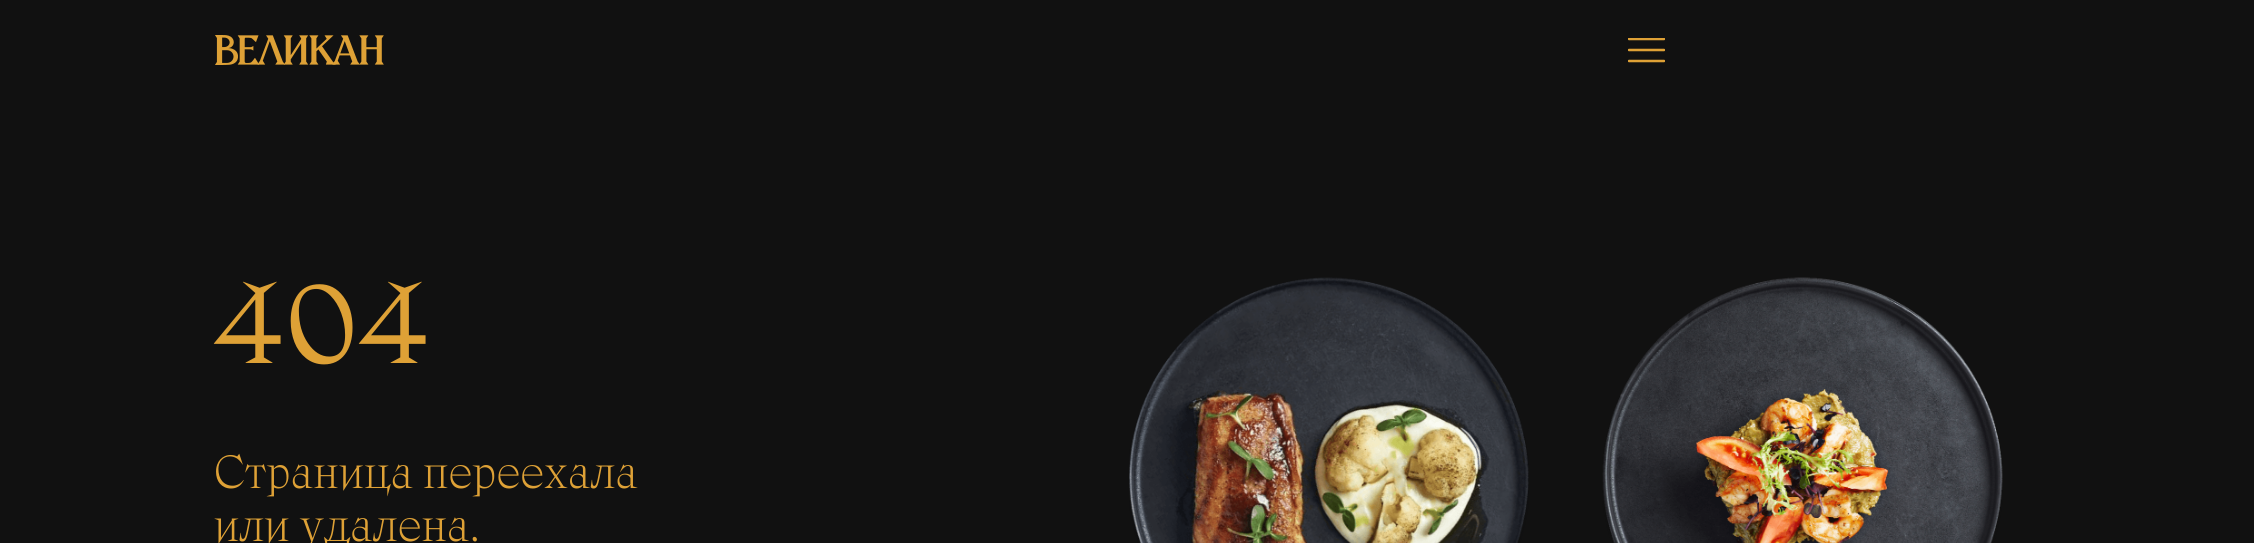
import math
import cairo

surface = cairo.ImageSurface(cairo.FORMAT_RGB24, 2254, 543)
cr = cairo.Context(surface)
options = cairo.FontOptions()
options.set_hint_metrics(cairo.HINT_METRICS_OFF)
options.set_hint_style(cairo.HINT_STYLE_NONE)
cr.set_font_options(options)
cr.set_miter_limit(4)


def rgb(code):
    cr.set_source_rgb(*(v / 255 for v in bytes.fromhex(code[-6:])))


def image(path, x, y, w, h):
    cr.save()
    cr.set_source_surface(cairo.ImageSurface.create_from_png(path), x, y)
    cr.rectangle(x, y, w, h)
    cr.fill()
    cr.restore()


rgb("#111111")
cr.paint()
image("img/1.png", 215, 35, 169, 30)
cr.save()
cr.rectangle(1628, 38, 37, 25)
cr.clip()
cr.new_path()
cr.move_to(1629, 39)
cr.line_to(1664, 39)
cr.move_to(1629, 50)
cr.line_to(1664, 50)
cr.move_to(1629, 61)
cr.line_to(1664, 61)
rgb("#dea136")
cr.set_line_width(2.5)
cr.set_line_cap(cairo.LINE_CAP_ROUND)
cr.stroke()
cr.restore()
image("img/2.png", 1129, 277, 400, 266)
image("img/3.png", 1602, 277, 401, 266)
cr.select_font_face("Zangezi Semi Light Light")
cr.set_font_size(107.5)
rgb("#dea136")
cr.move_to(214, 363)
cr.show_text("404")
cr.select_font_face("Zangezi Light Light")
cr.set_font_size(45)
cr.move_to(214, 488)
cr.show_text("Страница переехала")
cr.move_to(214, 541)
cr.show_text("или удалена.")
surface.write_to_png("page.png")
